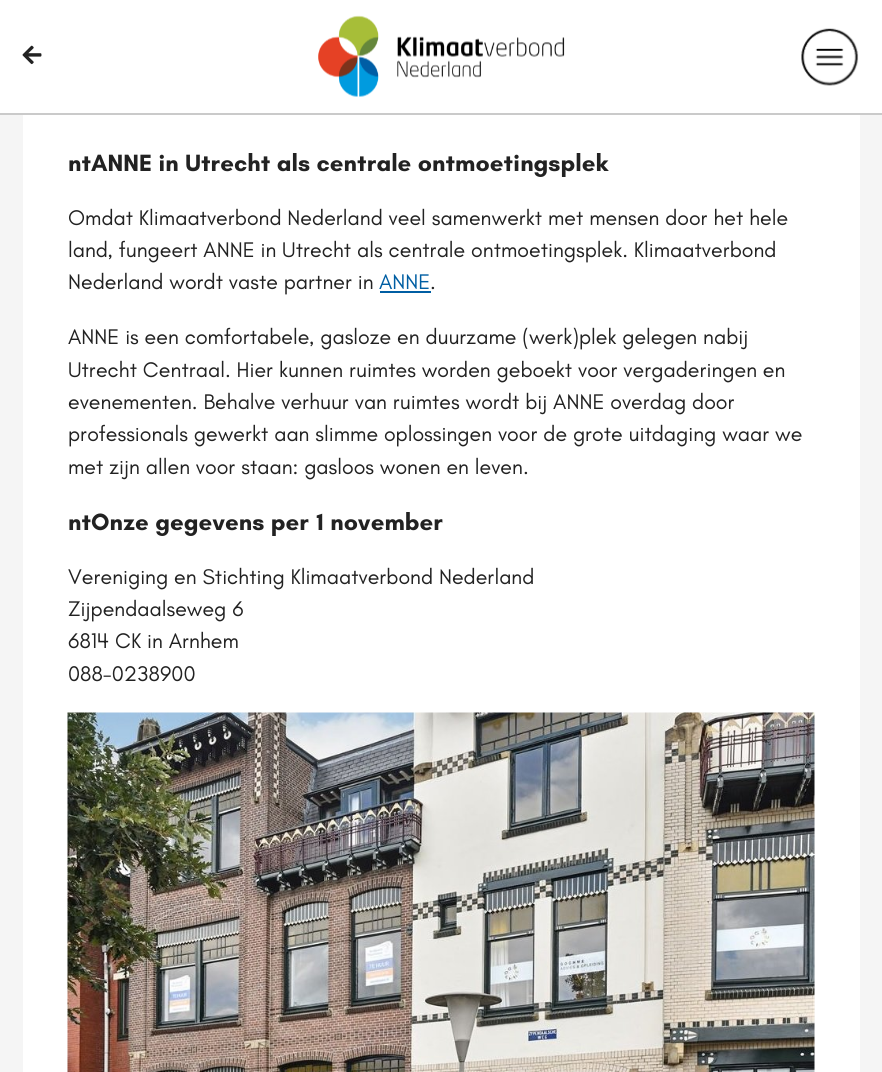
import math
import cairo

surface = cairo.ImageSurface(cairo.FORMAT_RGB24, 882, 1072)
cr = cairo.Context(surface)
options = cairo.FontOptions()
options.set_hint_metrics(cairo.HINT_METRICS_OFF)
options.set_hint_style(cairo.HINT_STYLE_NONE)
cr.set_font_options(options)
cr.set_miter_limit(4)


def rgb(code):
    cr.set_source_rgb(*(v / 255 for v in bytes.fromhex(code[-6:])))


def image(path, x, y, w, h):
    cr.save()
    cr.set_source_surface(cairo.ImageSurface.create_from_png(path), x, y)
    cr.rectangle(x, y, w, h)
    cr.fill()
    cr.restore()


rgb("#f5f5f5")
cr.paint()
rgb("#ffffff")
cr.rectangle(0, 0, 882, 113)
cr.fill()
rgb("#cacaca")
cr.rectangle(0, 113, 882, 2)
cr.fill()
image("img/1.png", 22, 45, 20, 20)
image("img/2.png", 318, 15, 247, 82)
image("img/3.png", 801, 28, 58, 58)
rgb("#ffffff")
cr.rectangle(23, 115, 837, 957)
cr.fill()
rgb("#005ea3")
cr.rectangle(380, 291, 51, 2)
cr.fill()
image("img/4.png", 67, 712, 748, 360)
cr.select_font_face("Teachers", cairo.FONT_SLANT_NORMAL, cairo.FONT_WEIGHT_BOLD)
cr.set_font_size(24)
rgb("#222222")
cr.move_to(68, 171)
cr.show_text("ntANNE in Utrecht als centrale ontmoetingsplek")
cr.select_font_face("Teachers")
cr.set_font_size(21.6)
for x, y, s in [
    (68, 225, "Omdat Klimaatverbond Nederland veel samenwerkt met mensen door het hele"),
    (68, 257, "land, fungeert ANNE in Utrecht als centrale ontmoetingsplek. Klimaatverbond"),
    (68, 289, "Nederland wordt vaste partner in"),
]:
    cr.move_to(x, y)
    cr.show_text(s)
rgb("#005ea3")
cr.move_to(379, 289)
cr.show_text("ANNE")
rgb("#222222")
for x, y, s in [
    (430, 289, "."),
    (68, 344, "ANNE is een comfortabele, gasloze en duurzame (werk)plek gelegen nabij"),
    (68, 377, "Utrecht Centraal. Hier kunnen ruimtes worden geboekt voor vergaderingen en"),
    (68, 409, "evenementen. Behalve verhuur van ruimtes wordt bij ANNE overdag door"),
    (68, 441, "professionals gewerkt aan slimme oplossingen voor de grote uitdaging waar we"),
    (68, 474, "met zijn allen voor staan: gasloos wonen en leven."),
]:
    cr.move_to(x, y)
    cr.show_text(s)
cr.select_font_face("Teachers", cairo.FONT_SLANT_NORMAL, cairo.FONT_WEIGHT_BOLD)
cr.set_font_size(24)
cr.move_to(68, 530)
cr.show_text("ntOnze gegevens per 1 november")
cr.select_font_face("Teachers")
cr.set_font_size(21.6)
for x, y, s in [
    (68, 584, "Vereniging en Stichting Klimaatverbond Nederland"),
    (68, 616, "Zijpendaalseweg 6"),
    (68, 648, "6814 CK in Arnhem"),
    (68, 681, "088-0238900"),
]:
    cr.move_to(x, y)
    cr.show_text(s)
surface.write_to_png("page.png")
